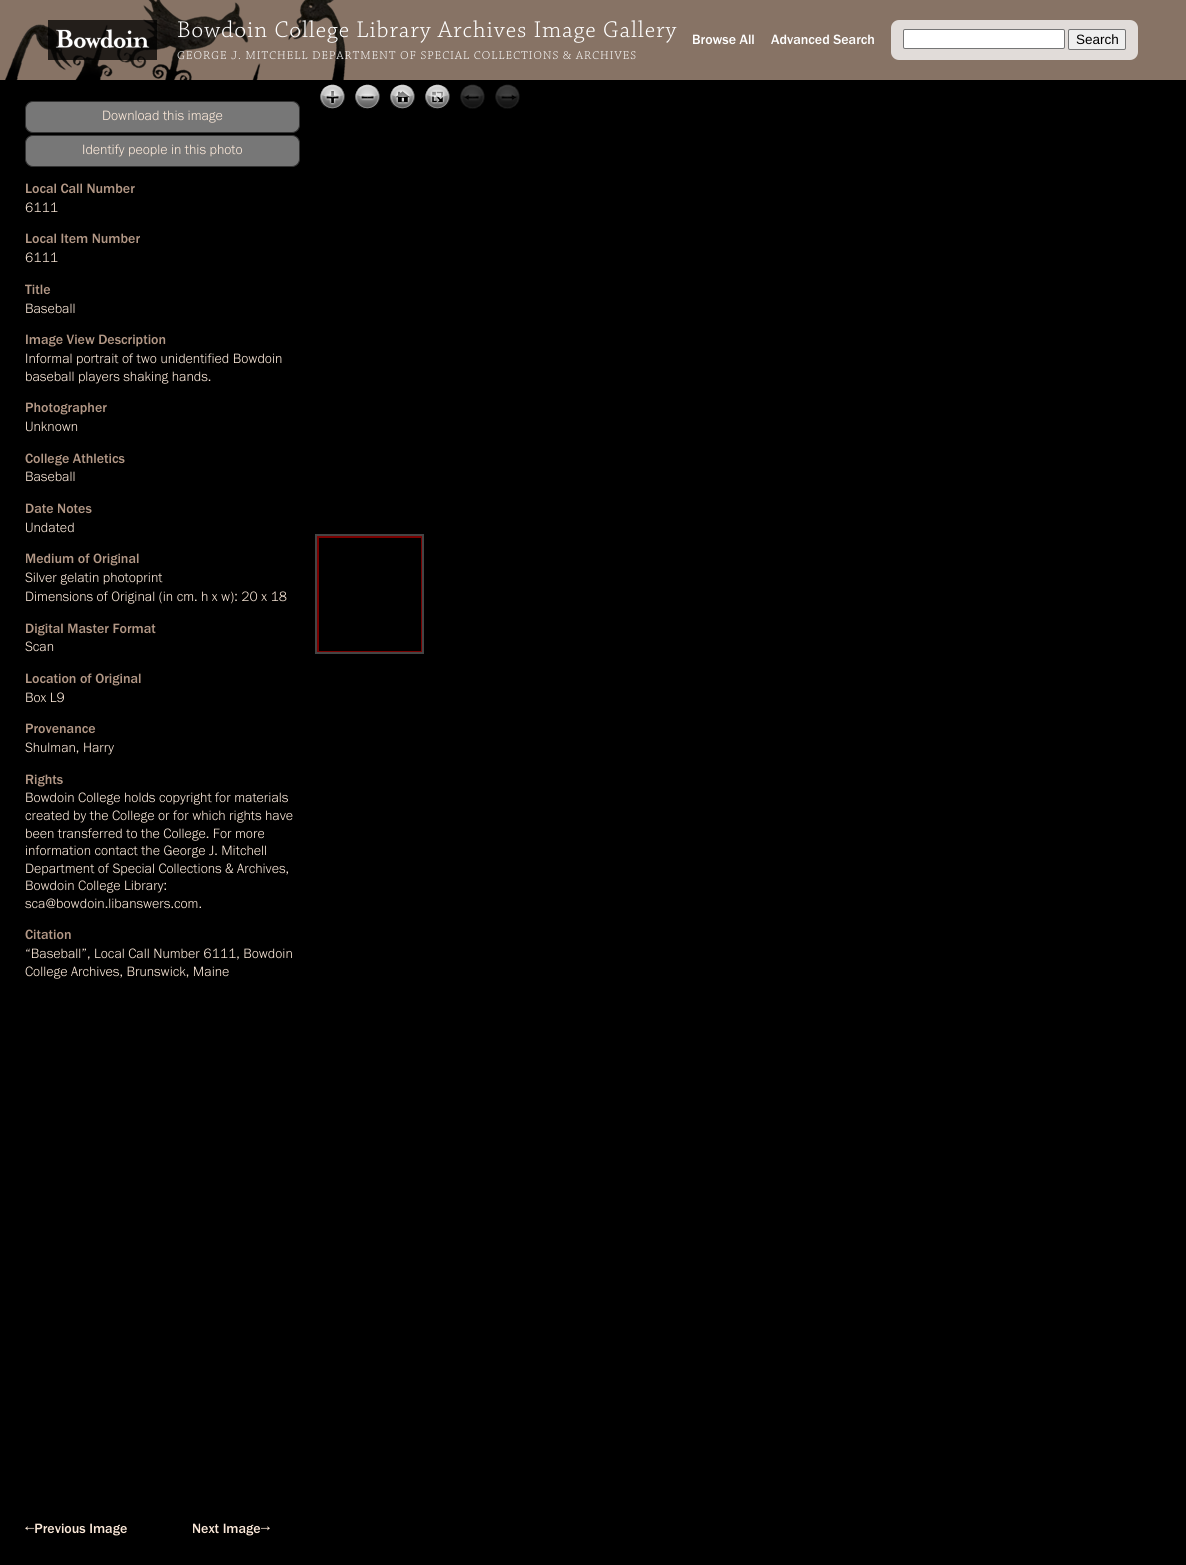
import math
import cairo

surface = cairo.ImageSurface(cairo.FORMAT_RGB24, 1186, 1565)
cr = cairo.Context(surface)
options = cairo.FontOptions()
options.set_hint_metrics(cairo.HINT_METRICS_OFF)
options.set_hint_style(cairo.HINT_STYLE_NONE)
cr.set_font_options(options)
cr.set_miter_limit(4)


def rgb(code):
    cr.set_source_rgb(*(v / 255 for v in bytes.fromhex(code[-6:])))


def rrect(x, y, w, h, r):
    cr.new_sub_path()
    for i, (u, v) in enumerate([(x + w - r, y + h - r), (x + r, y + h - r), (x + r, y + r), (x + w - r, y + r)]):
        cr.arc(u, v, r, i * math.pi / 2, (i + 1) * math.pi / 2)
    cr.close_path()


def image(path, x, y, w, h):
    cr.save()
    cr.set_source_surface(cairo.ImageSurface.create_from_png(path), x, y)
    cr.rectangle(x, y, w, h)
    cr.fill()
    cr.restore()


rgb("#000000")
cr.paint()
rgb("#877365")
cr.rectangle(0, 0, 1186, 80)
cr.fill()
image("img/1.png", 5, 0, 341, 80)
image("img/2.png", 48, 20, 109, 40)
image("img/3.png", 178, 20, 499, 23)
image("img/4.png", 177, 51, 459, 9)
rgb("#e1dcd9")
rrect(891, 20, 247, 40, 8)
cr.fill()
rgb("#ffffff")
rrect(903.5, 29.5, 161, 19, 1.5)
cr.fill_preserve()
rgb("#767676")
cr.set_line_width(1)
cr.stroke()
rgb("#efefef")
rrect(1068.5, 29.5, 57, 20, 1.5)
cr.fill_preserve()
rgb("#767676")
cr.stroke()
rgb("#777777")
rrect(25.5, 101.5, 274, 31, 7.5)
cr.fill_preserve()
rgb("#333333")
cr.stroke()
rgb("#777777")
rrect(25.5, 135.5, 274, 31, 7.5)
cr.fill_preserve()
rgb("#333333")
cr.stroke()
image("img/5.png", 320, 84, 25, 25)
image("img/6.png", 320, 84, 25, 25)
image("img/7.png", 355, 84, 25, 25)
image("img/8.png", 355, 84, 25, 25)
image("img/9.png", 390, 84, 25, 25)
image("img/10.png", 390, 84, 25, 25)
image("img/11.png", 425, 84, 25, 25)
image("img/12.png", 425, 84, 25, 25)
image("img/13.png", 460, 84, 25, 25)
image("img/14.png", 460, 84, 25, 25)
image("img/15.png", 495, 84, 25, 25)
image("img/16.png", 495, 84, 25, 25)
cr.rectangle(316, 535, 107, 118)
rgb("#444444")
cr.set_line_width(2)
cr.stroke()
cr.save()
cr.rectangle(317, 536, 105, 116)
cr.clip()
cr.rectangle(318, 537, 104, 115)
rgb("#7a0000")
cr.stroke()
cr.restore()
cr.select_font_face("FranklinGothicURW")
cr.set_font_size(14)
rgb("#ffffff")
cr.move_to(692, 44)
cr.show_text("Browse All")
cr.move_to(771, 44)
cr.show_text("Advanced Search")
cr.select_font_face("Liberation Sans")
cr.set_font_size(13.5)
rgb("#000000")
cr.move_to(1076, 44)
cr.show_text("Search")
cr.select_font_face("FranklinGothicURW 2")
cr.set_font_size(14)
rgb("#fce9d9")
cr.move_to(102, 120)
cr.show_text("Download this image")
cr.move_to(82, 154)
cr.show_text("Identify people in this photo")
cr.select_font_face("FranklinGothicURW")
rgb("#b39886")
cr.move_to(25, 193)
cr.show_text("Local Call Number")
cr.select_font_face("FranklinGothicURW 2")
rgb("#fce9d9")
cr.move_to(25, 212)
cr.show_text("6111")
cr.select_font_face("FranklinGothicURW")
rgb("#b39886")
cr.move_to(25, 243)
cr.show_text("Local Item Number")
cr.select_font_face("FranklinGothicURW 2")
rgb("#fce9d9")
cr.move_to(25, 262)
cr.show_text("6111")
cr.select_font_face("FranklinGothicURW")
rgb("#b39886")
cr.move_to(25, 294)
cr.show_text("Title")
cr.select_font_face("FranklinGothicURW 2")
rgb("#fce9d9")
cr.move_to(25, 313)
cr.show_text("Baseball")
cr.select_font_face("FranklinGothicURW")
rgb("#b39886")
cr.move_to(25, 344)
cr.show_text("Image View Description")
cr.select_font_face("FranklinGothicURW 2")
rgb("#fce9d9")
cr.move_to(25, 363)
cr.show_text("Informal portrait of two unidentified Bowdoin")
cr.move_to(25, 381)
cr.show_text("baseball players shaking hands.")
cr.select_font_face("FranklinGothicURW")
rgb("#b39886")
cr.move_to(25, 412)
cr.show_text("Photographer")
cr.select_font_face("FranklinGothicURW 2")
rgb("#fce9d9")
cr.move_to(25, 431)
cr.show_text("Unknown")
cr.select_font_face("FranklinGothicURW")
rgb("#b39886")
cr.move_to(25, 463)
cr.show_text("College Athletics")
cr.select_font_face("FranklinGothicURW 2")
rgb("#fce9d9")
cr.move_to(25, 481)
cr.show_text("Baseball")
cr.select_font_face("FranklinGothicURW")
rgb("#b39886")
cr.move_to(25, 513)
cr.show_text("Date Notes")
cr.select_font_face("FranklinGothicURW 2")
rgb("#fce9d9")
cr.move_to(25, 532)
cr.show_text("Undated")
cr.select_font_face("FranklinGothicURW")
rgb("#b39886")
cr.move_to(25, 563)
cr.show_text("Medium of Original")
cr.select_font_face("FranklinGothicURW 2")
rgb("#fce9d9")
cr.move_to(25, 582)
cr.show_text("Silver gelatin photoprint")
cr.move_to(25, 601)
cr.show_text("Dimensions of Original (in cm. h x w): 20 x 18")
cr.select_font_face("FranklinGothicURW")
rgb("#b39886")
cr.move_to(25, 633)
cr.show_text("Digital Master Format")
cr.select_font_face("FranklinGothicURW 2")
rgb("#fce9d9")
cr.move_to(25, 651)
cr.show_text("Scan")
cr.select_font_face("FranklinGothicURW")
rgb("#b39886")
cr.move_to(25, 683)
cr.show_text("Location of Original")
cr.select_font_face("FranklinGothicURW 2")
rgb("#fce9d9")
cr.move_to(25, 702)
cr.show_text("Box L9")
cr.select_font_face("FranklinGothicURW")
rgb("#b39886")
cr.move_to(25, 733)
cr.show_text("Provenance")
cr.select_font_face("FranklinGothicURW 2")
rgb("#fce9d9")
cr.move_to(25, 752)
cr.show_text("Shulman, Harry")
cr.select_font_face("FranklinGothicURW")
rgb("#b39886")
cr.move_to(25, 784)
cr.show_text("Rights")
cr.select_font_face("FranklinGothicURW 2")
rgb("#fce9d9")
for x, y, s in [
    (25, 802, "Bowdoin College holds copyright for materials"),
    (25, 820, "created by the College or for which rights have"),
    (25, 838, "been transferred to the College. For more"),
    (25, 855, "information contact the George J. Mitchell"),
    (25, 873, "Department of Special Collections & Archives,"),
    (25, 890, "Bowdoin College Library:"),
    (25, 908, "sca@bowdoin.libanswers.com."),
]:
    cr.move_to(x, y)
    cr.show_text(s)
cr.select_font_face("FranklinGothicURW")
rgb("#b39886")
cr.move_to(25, 939)
cr.show_text("Citation")
cr.select_font_face("FranklinGothicURW 2")
rgb("#fce9d9")
cr.move_to(25, 958)
cr.show_text("“Baseball”, Local Call Number 6111, Bowdoin")
cr.move_to(25, 976)
cr.show_text("College Archives, Brunswick, Maine")
cr.select_font_face("FranklinGothicURW")
cr.move_to(25, 1533)
cr.show_text("←Previous Image")
cr.move_to(192, 1533)
cr.show_text("Next Image→")
surface.write_to_png("page.png")
